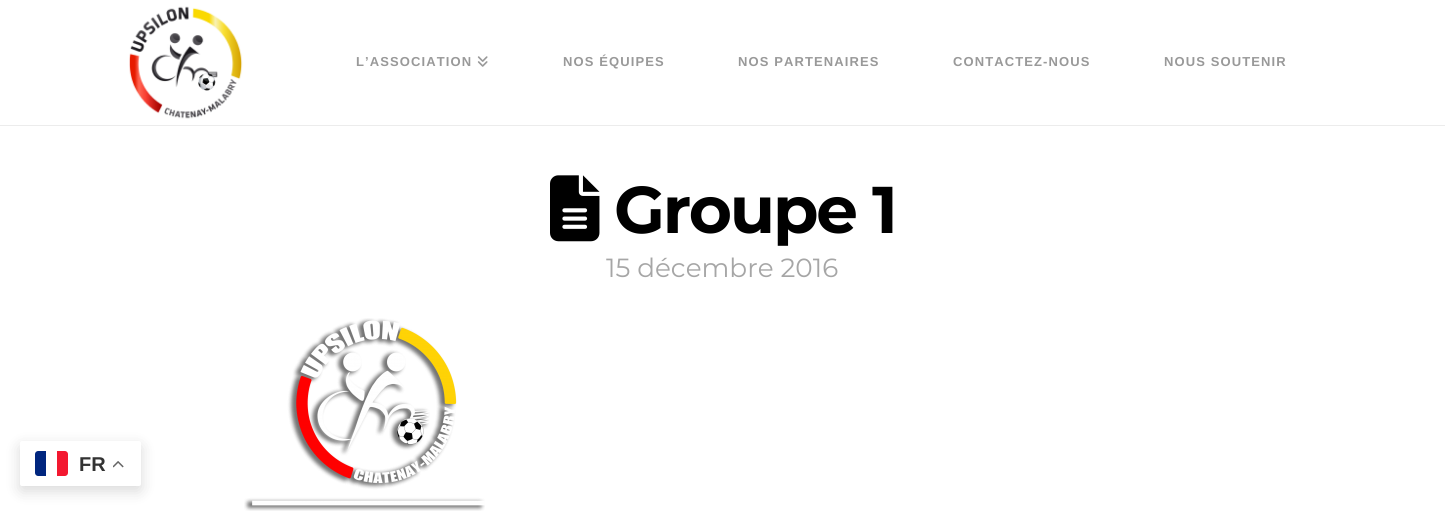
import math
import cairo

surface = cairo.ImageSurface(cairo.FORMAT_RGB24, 1445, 514)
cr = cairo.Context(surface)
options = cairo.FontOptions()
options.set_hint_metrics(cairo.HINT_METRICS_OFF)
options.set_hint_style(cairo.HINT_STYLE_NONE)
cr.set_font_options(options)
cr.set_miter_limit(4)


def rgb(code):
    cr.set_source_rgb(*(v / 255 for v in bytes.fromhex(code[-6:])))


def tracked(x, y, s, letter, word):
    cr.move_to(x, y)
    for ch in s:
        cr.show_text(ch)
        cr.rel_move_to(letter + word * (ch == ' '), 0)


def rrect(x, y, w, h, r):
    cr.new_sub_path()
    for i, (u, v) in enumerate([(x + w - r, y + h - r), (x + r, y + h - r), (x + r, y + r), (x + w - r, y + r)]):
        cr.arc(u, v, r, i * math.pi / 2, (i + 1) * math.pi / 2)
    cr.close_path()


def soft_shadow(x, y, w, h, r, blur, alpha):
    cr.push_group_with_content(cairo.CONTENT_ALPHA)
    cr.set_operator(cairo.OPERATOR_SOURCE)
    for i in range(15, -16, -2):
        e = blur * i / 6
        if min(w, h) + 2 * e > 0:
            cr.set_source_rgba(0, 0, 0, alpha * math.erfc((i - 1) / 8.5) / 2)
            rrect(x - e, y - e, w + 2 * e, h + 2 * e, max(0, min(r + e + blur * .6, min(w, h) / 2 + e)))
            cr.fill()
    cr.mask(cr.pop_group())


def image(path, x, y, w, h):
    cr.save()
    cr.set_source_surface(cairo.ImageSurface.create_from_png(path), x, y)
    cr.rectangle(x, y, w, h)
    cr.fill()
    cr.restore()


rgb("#ffffff")
cr.paint()
rgb("#ececec")
cr.rectangle(0, 125, 1445, 1)
cr.fill()
image("img/1.png", 129, 6, 114, 113)
image("img/2.png", 477, 56, 11, 11)
image("img/3.png", 550, 175, 50, 67)
image("img/4.png", 244, 318, 241, 193)
rgb("#000000")
soft_shadow(20, 446, 121, 45, 2, 7.5, 0.15)
rgb("#ffffff")
rrect(20, 441, 121, 45, 2)
cr.fill()
rgb("#00267f")
cr.new_path()
cr.move_to(38, 451)
cr.line_to(46, 451)
cr.line_to(46, 476)
cr.line_to(38, 476)
cr.curve_to(36.5, 476, 35, 474.5, 35, 473)
cr.line_to(35, 454)
cr.curve_to(35, 452.5, 36.5, 451, 38, 451)
cr.close_path()
cr.fill()
rgb("#f31830")
cr.new_path()
cr.move_to(57, 451)
cr.line_to(65, 451)
cr.curve_to(66.5, 451, 68, 452.5, 68, 454)
cr.line_to(68, 473)
cr.curve_to(68, 474.5, 66.5, 476, 65, 476)
cr.line_to(57, 476)
cr.close_path()
cr.fill()
image("img/5.png", 113, 461, 11, 7)
cr.select_font_face("Liberation Sans", cairo.FONT_SLANT_NORMAL, cairo.FONT_WEIGHT_BOLD)
cr.set_font_size(13)
rgb("#999999")
for x, y, s in [
    (356, 66, "L’ASSOCIATION"),
    (563, 66, "NOS ÉQUIPES"),
    (738, 66, "NOS PARTENAIRES"),
    (953, 66, "CONTACTEZ-NOUS"),
    (1164, 66, "NOUS SOUTENIR"),
]:
    tracked(x, y, s, 1.1, 0)
cr.select_font_face("Montserrat", cairo.FONT_SLANT_NORMAL, cairo.FONT_WEIGHT_BOLD)
cr.set_font_size(66)
rgb("#000000")
tracked(614, 233, "Groupe 1", -2.25, 0)
cr.select_font_face("Montserrat")
cr.set_font_size(26.25)
rgb("#a6a6a6")
cr.move_to(606, 277)
cr.show_text("15 décembre 2016")
cr.select_font_face("Liberation Sans", cairo.FONT_SLANT_NORMAL, cairo.FONT_WEIGHT_BOLD)
cr.set_font_size(20)
rgb("#333333")
cr.move_to(79, 471)
cr.show_text("FR")
surface.write_to_png("page.png")
